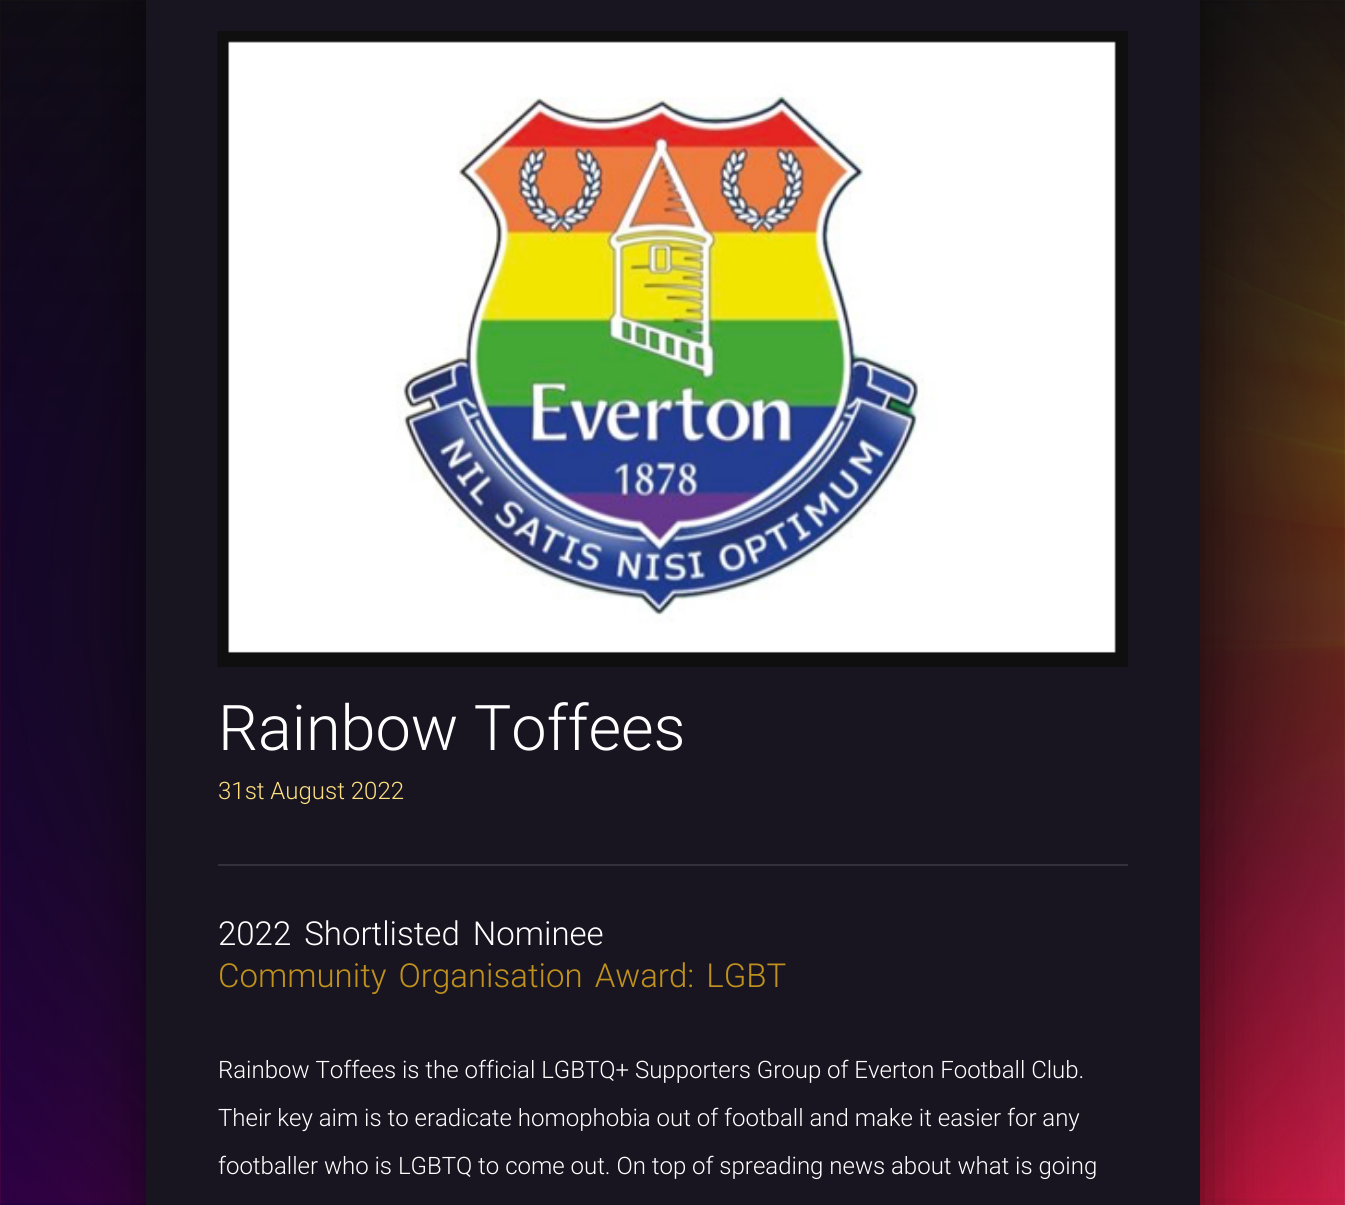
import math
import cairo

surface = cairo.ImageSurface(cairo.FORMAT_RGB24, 1345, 1205)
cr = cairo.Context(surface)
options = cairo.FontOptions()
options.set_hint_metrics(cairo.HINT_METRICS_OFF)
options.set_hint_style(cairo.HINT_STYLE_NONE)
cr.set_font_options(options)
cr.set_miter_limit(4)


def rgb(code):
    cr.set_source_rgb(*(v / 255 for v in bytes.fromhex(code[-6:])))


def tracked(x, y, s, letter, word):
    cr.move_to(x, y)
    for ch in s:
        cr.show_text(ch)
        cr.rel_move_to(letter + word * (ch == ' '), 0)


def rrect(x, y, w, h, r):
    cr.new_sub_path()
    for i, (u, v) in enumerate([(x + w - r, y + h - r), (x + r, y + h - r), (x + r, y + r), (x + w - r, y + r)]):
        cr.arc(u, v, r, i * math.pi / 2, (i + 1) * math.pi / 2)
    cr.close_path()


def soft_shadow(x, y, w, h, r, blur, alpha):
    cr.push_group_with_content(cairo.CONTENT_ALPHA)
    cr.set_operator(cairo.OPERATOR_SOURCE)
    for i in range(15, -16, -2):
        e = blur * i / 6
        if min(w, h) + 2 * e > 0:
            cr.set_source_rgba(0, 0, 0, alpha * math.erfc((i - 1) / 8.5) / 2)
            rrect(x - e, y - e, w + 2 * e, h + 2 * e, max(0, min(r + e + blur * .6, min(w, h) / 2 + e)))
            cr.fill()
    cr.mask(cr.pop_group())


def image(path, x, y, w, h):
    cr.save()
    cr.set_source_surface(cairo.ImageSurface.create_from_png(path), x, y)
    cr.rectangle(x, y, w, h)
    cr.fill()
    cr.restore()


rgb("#ffffff")
cr.paint()
image("img/1.png", 0, 0, 1345, 1205)
gradient = cairo.LinearGradient(673, 0, 673, 450)
gradient.add_color_stop_rgba(0, 0.063, 0.063, 0.063, 0.8)
gradient.add_color_stop_rgba(1, 0.063, 0.063, 0.063, 0)
cr.set_source(gradient)
cr.rectangle(0, 0, 1345, 438)
cr.fill()
gradient = cairo.RadialGradient(673, 603, 0, 673, 603, 903)
gradient.add_color_stop_rgba(0, 0.063, 0.063, 0.063, 0.8)
gradient.add_color_stop_rgba(0.6, 0.063, 0.063, 0.063, 0.6)
gradient.add_color_stop_rgba(1, 0.063, 0.063, 0.063, 0)
cr.set_source(gradient)
cr.rectangle(0, 0, 1345, 1205)
cr.fill()
rgb("#000000")
soft_shadow(146, -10, 1054, 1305, 0, 30, 0.49)
rgb("#181521")
cr.rectangle(146, 0, 1054, 1205)
cr.fill()
image("img/2.png", 217, 31, 911, 636)
rgb("#34313c")
cr.rectangle(218, 864, 910, 2)
cr.fill()
cr.select_font_face("Roboto Light")
cr.set_font_size(63)
rgb("#ffffff")
cr.move_to(218, 750)
cr.show_text("Rainbow Toffees")
cr.set_font_size(24)
rgb("#fde080")
cr.move_to(218, 799)
cr.show_text("31st August 2022")
cr.set_font_size(33)
rgb("#ffffff")
tracked(218, 945, "2022 Shortlisted Nominee", 0, 5)
rgb("#c0911c")
tracked(218, 987, "Community Organisation Award: LGBT", 0, 4)
cr.set_font_size(24)
rgb("#ffffff")
for x, y, s in [
    (218, 1078, "Rainbow Toffees is the official LGBTQ+ Supporters Group of Everton Football Club."),
    (218, 1126, "Their key aim is to eradicate homophobia out of football and make it easier for any"),
    (218, 1174, "footballer who is LGBTQ to come out. On top of spreading news about what is going"),
]:
    cr.move_to(x, y)
    cr.show_text(s)
surface.write_to_png("page.png")
